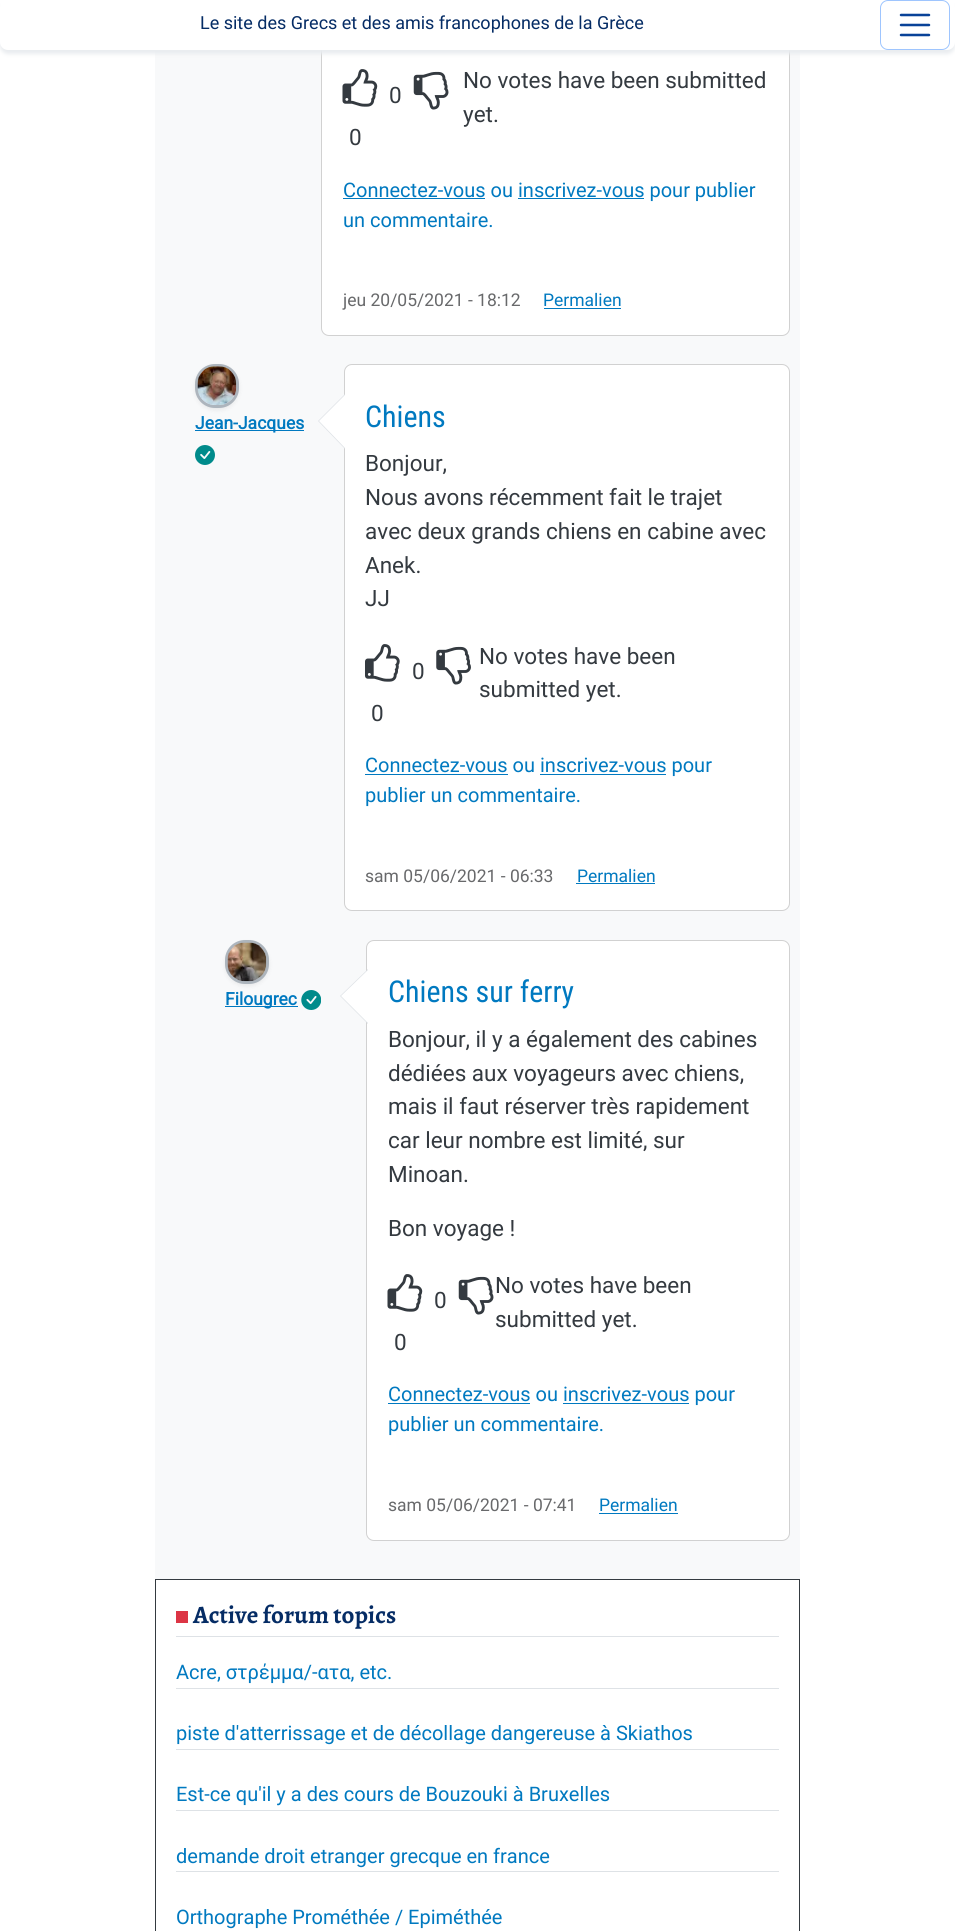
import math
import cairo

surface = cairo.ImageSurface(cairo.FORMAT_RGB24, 955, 1931)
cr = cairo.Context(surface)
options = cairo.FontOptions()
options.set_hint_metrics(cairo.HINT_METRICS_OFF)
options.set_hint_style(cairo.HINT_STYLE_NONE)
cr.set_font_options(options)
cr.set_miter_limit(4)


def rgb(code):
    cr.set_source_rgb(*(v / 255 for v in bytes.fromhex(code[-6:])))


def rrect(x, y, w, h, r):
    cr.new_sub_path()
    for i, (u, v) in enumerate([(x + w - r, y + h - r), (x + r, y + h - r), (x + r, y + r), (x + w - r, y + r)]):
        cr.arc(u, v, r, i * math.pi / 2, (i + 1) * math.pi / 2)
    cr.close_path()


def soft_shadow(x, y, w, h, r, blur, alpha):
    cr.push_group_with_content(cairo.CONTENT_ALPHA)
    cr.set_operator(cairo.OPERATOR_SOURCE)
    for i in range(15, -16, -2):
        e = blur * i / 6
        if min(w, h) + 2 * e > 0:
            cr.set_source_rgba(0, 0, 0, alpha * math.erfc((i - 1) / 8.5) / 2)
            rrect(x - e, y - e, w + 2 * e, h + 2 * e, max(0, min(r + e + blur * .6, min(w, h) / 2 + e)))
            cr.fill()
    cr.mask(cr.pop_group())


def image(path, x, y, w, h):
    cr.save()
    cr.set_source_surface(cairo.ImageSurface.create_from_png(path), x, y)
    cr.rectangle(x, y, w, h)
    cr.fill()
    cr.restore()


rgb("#ffffff")
cr.paint()
rgb("#f8f9fa")
cr.rectangle(155, 50, 645, 1529)
cr.fill()
rgb("#ffffff")
rrect(321, -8, 469, 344, 8)
cr.fill()
rrect(321.5, -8.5, 468, 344, 7.5)
cr.set_source_rgba(0, 0, 0, 0.18)
cr.set_line_width(1)
cr.stroke()
rgb("#e9ecef")
soft_shadow(0, 4, 955, 50, 8, 2, 1)
rgb("#ffffff")
rrect(0, 0, 955, 50, 8)
cr.fill()
rrect(880.5, 0.5, 69, 49, 7.5)
rgb("#9ec5fe")
cr.stroke()
cr.new_path()
cr.move_to(901, 15)
cr.line_to(929, 15)
cr.move_to(901, 25)
cr.line_to(929, 25)
cr.move_to(901, 35)
cr.line_to(929, 35)
rgb("#084298")
cr.set_line_width(2.5)
cr.set_line_cap(cairo.LINE_CAP_ROUND)
cr.stroke()
image("img/1.png", 342, 69, 36, 38)
image("img/2.png", 413, 71, 36, 39)
for x, y, w, h, color in [
    (343, 198, 142, 1, "#0079c0"),
    (518, 198, 126, 1, "#0079c0"),
    (544, 308, 77, 1, "#0079c0"),
]:
    rgb(color)
    cr.rectangle(x, y, w, h)
    cr.fill()
rgb("#000000")
soft_shadow(195, 366, 44, 44, 20, 2.5, 0.07)
rrect(196.5, 365.5, 41, 41, 18.5)
rgb("#adb5bd")
cr.set_line_width(3)
cr.set_line_cap(cairo.LINE_CAP_BUTT)
cr.stroke()
image("img/3.png", 197, 366, 40, 39)
rgb("#0079c0")
cr.rectangle(195, 430, 109, 1)
cr.fill()
image("img/4.png", 195, 445, 20, 20)
rgb("#ffffff")
rrect(344, 364, 446, 547, 8)
cr.fill()
rrect(344.5, 364.5, 445, 546, 7.5)
cr.set_source_rgba(0, 0, 0, 0.18)
cr.set_line_width(1)
cr.stroke()
rgb("#dee2e6")
cr.new_path()
cr.move_to(345, 394)
cr.line_to(345, 449)
cr.line_to(318, 421)
cr.close_path()
cr.fill()
rgb("#ffffff")
cr.new_path()
cr.move_to(346, 394)
cr.line_to(346, 449)
cr.line_to(319, 421)
cr.close_path()
cr.fill()
image("img/5.png", 365, 644, 35, 38)
image("img/6.png", 436, 646, 35, 39)
for x, y, w, h, color in [
    (365, 774, 143, 1, "#0079c0"),
    (540, 774, 126, 1, "#0079c0"),
    (576, 883, 79, 1, "#0079c0"),
]:
    rgb(color)
    cr.rectangle(x, y, w, h)
    cr.fill()
rgb("#000000")
soft_shadow(225, 943, 44, 43, 20, 2.5, 0.07)
rrect(226.5, 941.5, 41, 41, 18.5)
rgb("#adb5bd")
cr.set_line_width(3)
cr.stroke()
image("img/7.png", 227, 942, 40, 40)
rgb("#0079c0")
cr.rectangle(225, 1006, 73, 1)
cr.fill()
image("img/8.png", 301, 990, 20, 20)
rgb("#ffffff")
rrect(366, 940, 424, 601, 8)
cr.fill()
rrect(366.5, 940.5, 423, 600, 7.5)
cr.set_source_rgba(0, 0, 0, 0.18)
cr.set_line_width(1)
cr.stroke()
rgb("#dee2e6")
cr.new_path()
cr.move_to(368, 969)
cr.line_to(368, 1024)
cr.line_to(340, 996)
cr.close_path()
cr.fill()
rgb("#ffffff")
cr.new_path()
cr.move_to(369, 969)
cr.line_to(369, 1024)
cr.line_to(341, 996)
cr.close_path()
cr.fill()
image("img/1.png", 387, 1274, 36, 38)
image("img/2.png", 458, 1276, 36, 39)
for x, y, w, h, color in [
    (388, 1403, 142, 1, "#0079c0"),
    (563, 1403, 126, 1, "#0079c0"),
    (599, 1513, 79, 1, "#0079c0"),
]:
    rgb(color)
    cr.rectangle(x, y, w, h)
    cr.fill()
cr.rectangle(155.5, 1579.5, 644, 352)
rgb("#343a40")
cr.stroke()
for x, y, w, h, color in [
    (176, 1636, 603, 1, "#dee2e6"),
    (176, 1611, 12, 12, "#dc3545"),
    (176, 1688, 603, 1, "#dee2e6"),
    (176, 1749, 603, 1, "#dee2e6"),
    (176, 1810, 603, 1, "#dee2e6"),
    (176, 1871, 603, 1, "#dee2e6"),
]:
    rgb(color)
    cr.rectangle(x, y, w, h)
    cr.fill()
cr.select_font_face("Roboto")
cr.set_font_size(18)
rgb("#052c65")
cr.move_to(200, 29)
cr.show_text("Le site des Grecs et des amis francophones de la Grèce")
cr.set_font_size(22.5)
rgb("#343a40")
for x, y, s in [
    (389, 103, "0"),
    (349, 145, "0"),
    (463, 88, "No votes have been submitted"),
    (463, 122, "yet."),
]:
    cr.move_to(x, y)
    cr.show_text(s)
cr.set_font_size(20)
rgb("#0079c0")
cr.move_to(343, 197)
cr.show_text("Connectez-vous ou inscrivez-vous pour publier")
cr.move_to(343, 227)
cr.show_text("un commentaire.")
cr.set_font_size(17.5)
rgb("#68696b")
cr.move_to(343, 306)
cr.show_text("jeu 20/05/2021 - 18:12")
rgb("#0079c0")
cr.move_to(543, 306)
cr.show_text("Permalien")
cr.select_font_face("Roboto", cairo.FONT_SLANT_NORMAL, cairo.FONT_WEIGHT_BOLD)
cr.move_to(195, 429)
cr.show_text("Jean-Jacques")
cr.select_font_face("Roboto Condensed")
cr.set_font_size(30)
cr.move_to(365, 427)
cr.show_text("Chiens")
cr.select_font_face("Roboto")
cr.set_font_size(22.5)
rgb("#343a40")
for x, y, s in [
    (365, 471, "Bonjour,"),
    (365, 505, "Nous avons récemment fait le trajet"),
    (365, 539, "avec deux grands chiens en cabine avec"),
    (365, 573, "Anek."),
    (365, 606, "JJ"),
    (412, 679, "0"),
    (371, 721, "0"),
    (479, 664, "No votes have been"),
    (479, 697, "submitted yet."),
]:
    cr.move_to(x, y)
    cr.show_text(s)
cr.set_font_size(20)
rgb("#0079c0")
cr.move_to(365, 772)
cr.show_text("Connectez-vous ou inscrivez-vous pour")
cr.move_to(365, 802)
cr.show_text("publier un commentaire.")
cr.set_font_size(17.5)
rgb("#68696b")
cr.move_to(365, 882)
cr.show_text("sam 05/06/2021 - 06:33")
rgb("#0079c0")
cr.move_to(577, 882)
cr.show_text("Permalien")
cr.select_font_face("Roboto", cairo.FONT_SLANT_NORMAL, cairo.FONT_WEIGHT_BOLD)
cr.move_to(225, 1005)
cr.show_text("Filougrec")
cr.select_font_face("Roboto Condensed")
cr.set_font_size(30)
cr.move_to(388, 1002)
cr.show_text("Chiens sur ferry")
cr.select_font_face("Roboto")
cr.set_font_size(22.5)
rgb("#343a40")
for x, y, s in [
    (388, 1047, "Bonjour, il y a également des cabines"),
    (388, 1081, "dédiées aux voyageurs avec chiens,"),
    (388, 1114, "mais il faut réserver très rapidement"),
    (388, 1148, "car leur nombre est limité, sur"),
    (388, 1182, "Minoan."),
    (388, 1236, "Bon voyage !"),
    (434, 1308, "0"),
    (394, 1350, "0"),
    (495, 1293, "No votes have been"),
    (495, 1327, "submitted yet."),
]:
    cr.move_to(x, y)
    cr.show_text(s)
cr.set_font_size(20)
rgb("#0079c0")
cr.move_to(388, 1401)
cr.show_text("Connectez-vous ou inscrivez-vous pour")
cr.move_to(388, 1431)
cr.show_text("publier un commentaire.")
cr.set_font_size(17.5)
rgb("#68696b")
cr.move_to(388, 1511)
cr.show_text("sam 05/06/2021 - 07:41")
rgb("#0079c0")
cr.move_to(599, 1511)
cr.show_text("Permalien")
cr.select_font_face("Alegreya", cairo.FONT_SLANT_NORMAL, cairo.FONT_WEIGHT_BOLD)
cr.set_font_size(25)
rgb("#052c65")
cr.move_to(193, 1623)
cr.show_text("Active forum topics")
cr.select_font_face("Roboto")
cr.set_font_size(20)
rgb("#0079c0")
for x, y, s in [
    (176, 1679, "Acre, στρέμμα/-ατα, etc."),
    (176, 1740, "piste d'atterrissage et de décollage dangereuse à Skiathos"),
    (176, 1801, "Est-ce qu'il y a des cours de Bouzouki à Bruxelles"),
    (176, 1863, "demande droit etranger grecque en france"),
    (176, 1924, "Orthographe Prométhée / Epiméthée"),
]:
    cr.move_to(x, y)
    cr.show_text(s)
surface.write_to_png("page.png")
